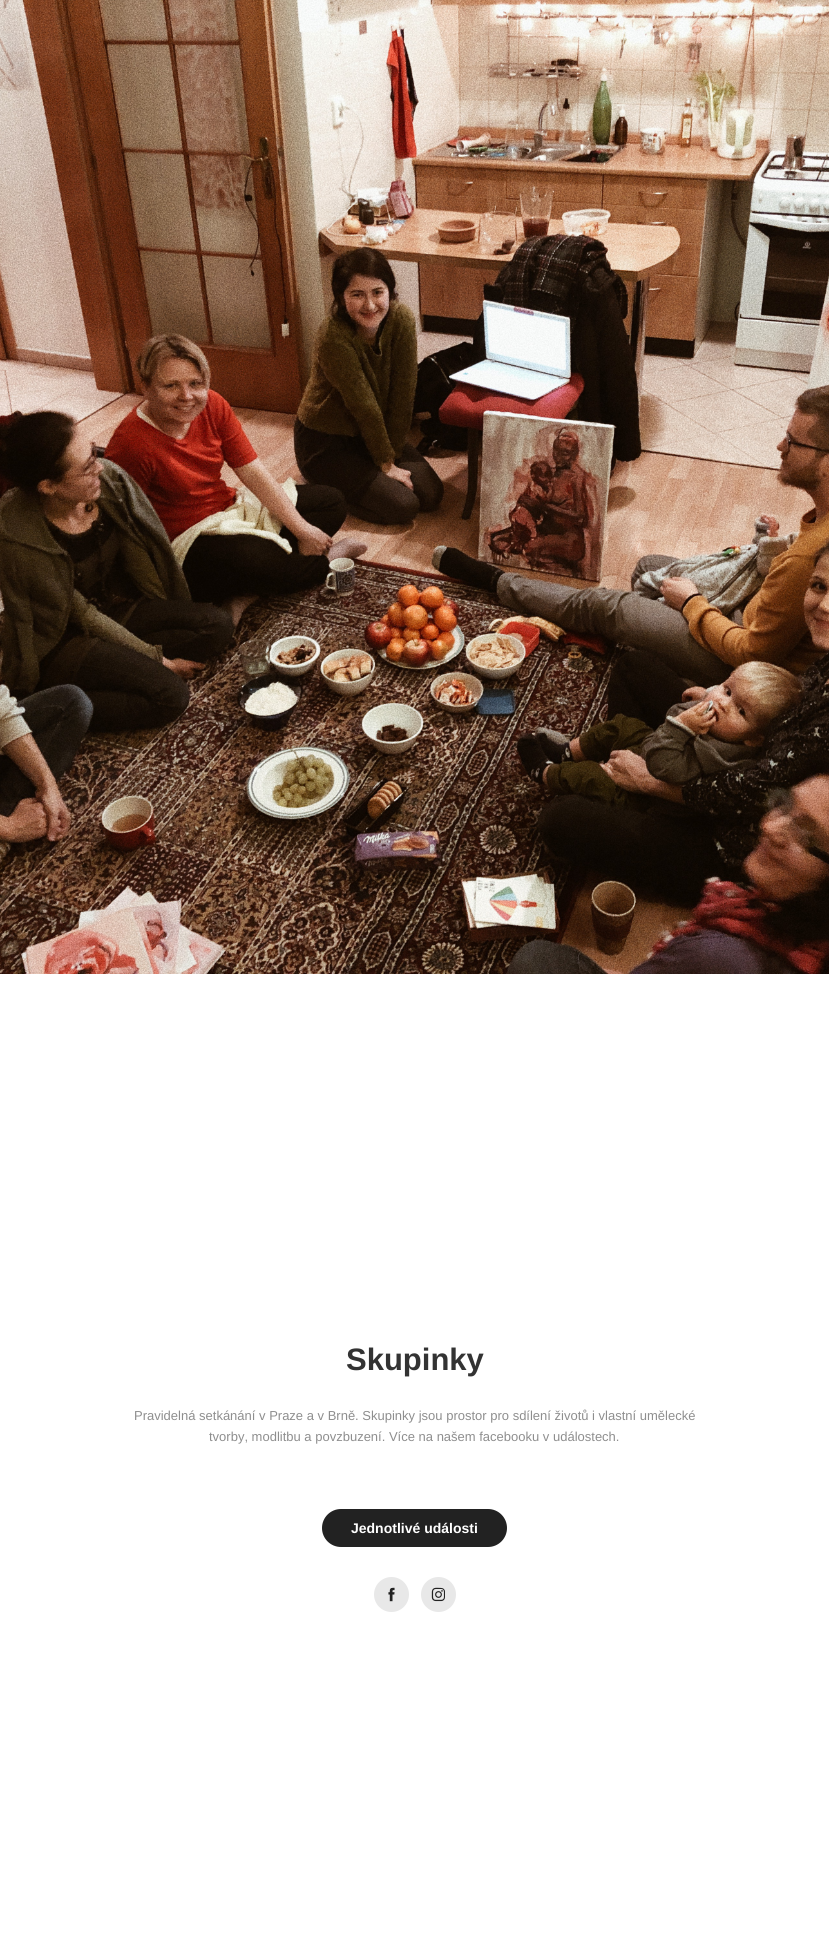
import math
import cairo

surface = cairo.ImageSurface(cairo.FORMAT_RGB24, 829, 1948)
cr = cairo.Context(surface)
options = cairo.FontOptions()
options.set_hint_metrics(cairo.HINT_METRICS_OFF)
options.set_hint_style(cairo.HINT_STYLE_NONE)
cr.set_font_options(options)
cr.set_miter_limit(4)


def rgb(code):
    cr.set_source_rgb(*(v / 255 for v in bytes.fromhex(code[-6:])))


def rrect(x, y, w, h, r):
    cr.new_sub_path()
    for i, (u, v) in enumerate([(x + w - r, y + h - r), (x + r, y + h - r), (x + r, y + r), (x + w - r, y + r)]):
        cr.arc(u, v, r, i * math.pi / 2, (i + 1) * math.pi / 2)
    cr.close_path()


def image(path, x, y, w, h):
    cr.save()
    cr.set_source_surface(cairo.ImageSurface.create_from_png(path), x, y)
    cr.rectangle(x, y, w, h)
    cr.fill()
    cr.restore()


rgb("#ffffff")
cr.paint()
image("img/1.png", 0, 0, 829, 974)
rgb("#222222")
rrect(322, 1509, 185, 38, 19)
cr.fill()
rgb("#e8e8e8")
cr.arc(391.5, 1594.5, 17.5, 0, 2 * math.pi)
cr.fill()
image("img/2.png", 388, 1587, 7, 15)
cr.arc(438.5, 1594.5, 17.5, 0, 2 * math.pi)
cr.fill()
image("img/3.png", 431, 1587, 14, 15)
cr.select_font_face("Liberation Sans", cairo.FONT_SLANT_NORMAL, cairo.FONT_WEIGHT_BOLD)
cr.set_font_size(31)
rgb("#333333")
cr.move_to(346, 1370)
cr.show_text("Skupinky")
cr.select_font_face("Liberation Sans")
cr.set_font_size(13)
rgb("#8e8e8e")
cr.move_to(134, 1420)
cr.show_text("Pravidelná setkánání v Praze a v Brně. Skupinky jsou prostor pro sdílení životů i vlastní umělecké")
cr.move_to(209, 1441)
cr.show_text("tvorby, modlitbu a povzbuzení. Více na našem facebooku v událostech.")
cr.select_font_face("Liberation Sans", cairo.FONT_SLANT_NORMAL, cairo.FONT_WEIGHT_BOLD)
cr.set_font_size(14)
rgb("#ffffff")
cr.move_to(351, 1533)
cr.show_text("Jednotlivé události")
surface.write_to_png("page.png")
